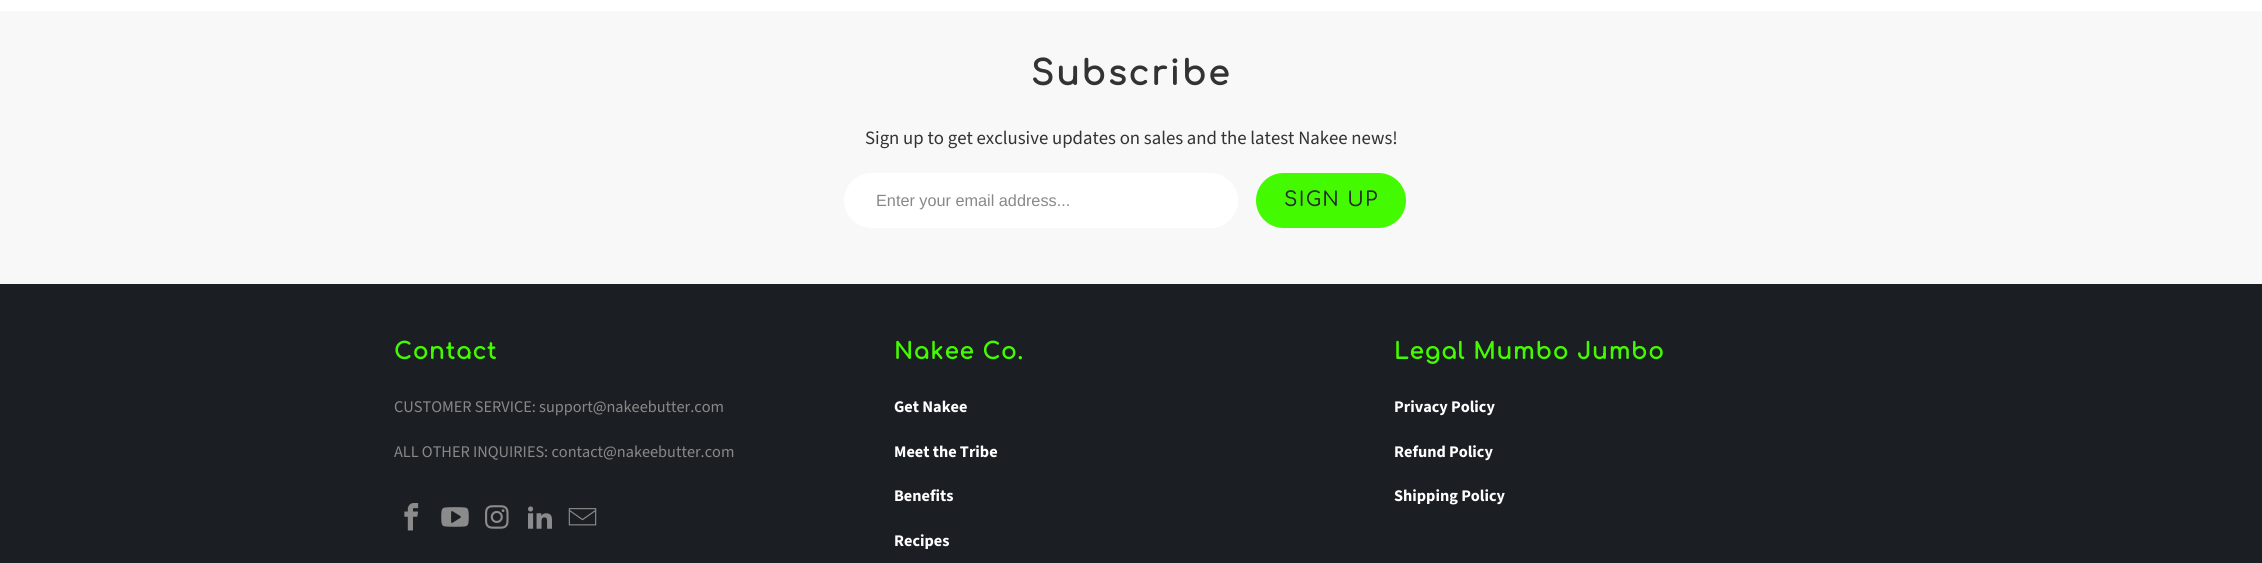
import math
import cairo

surface = cairo.ImageSurface(cairo.FORMAT_RGB24, 2262, 563)
cr = cairo.Context(surface)
options = cairo.FontOptions()
options.set_hint_metrics(cairo.HINT_METRICS_OFF)
options.set_hint_style(cairo.HINT_STYLE_NONE)
cr.set_font_options(options)
cr.set_miter_limit(4)


def rgb(code):
    cr.set_source_rgb(*(v / 255 for v in bytes.fromhex(code[-6:])))


def tracked(x, y, s, letter, word):
    cr.move_to(x, y)
    for ch in s:
        cr.show_text(ch)
        cr.rel_move_to(letter + word * (ch == ' '), 0)


def rrect(x, y, w, h, r):
    cr.new_sub_path()
    for i, (u, v) in enumerate([(x + w - r, y + h - r), (x + r, y + h - r), (x + r, y + r), (x + w - r, y + r)]):
        cr.arc(u, v, r, i * math.pi / 2, (i + 1) * math.pi / 2)
    cr.close_path()


def image(path, x, y, w, h):
    cr.save()
    cr.set_source_surface(cairo.ImageSurface.create_from_png(path), x, y)
    cr.rectangle(x, y, w, h)
    cr.fill()
    cr.restore()


rgb("#ffffff")
cr.paint()
rgb("#f8f8f8")
cr.rectangle(0, 11, 2262, 273)
cr.fill()
rgb("#ffffff")
rrect(844, 173, 394, 55, 27.5)
cr.fill()
rgb("#44fa00")
rrect(1256, 173, 150, 55, 27.5)
cr.fill()
rgb("#1b1f23")
cr.rectangle(0, 284, 2262, 279)
cr.fill()
image("img/1.png", 404, 503, 15, 28)
image("img/2.png", 441, 507, 28, 20)
image("img/3.png", 485, 505, 24, 24)
image("img/4.png", 528, 506, 24, 23)
image("img/5.png", 568, 508, 29, 18)
cr.select_font_face("Comfortaa", cairo.FONT_SLANT_NORMAL, cairo.FONT_WEIGHT_BOLD)
cr.set_font_size(33.75)
rgb("#333333")
tracked(1031, 85, "Subscribe", 2.5, 0)
cr.select_font_face("Source Sans Pro")
cr.set_font_size(18.75)
cr.move_to(865, 144)
cr.show_text("Sign up to get exclusive updates on sales and the latest Nakee news!")
cr.select_font_face("Liberation Sans")
cr.set_font_size(16.25)
rgb("#888888")
cr.move_to(876, 206)
cr.show_text("Enter your email address...")
cr.select_font_face("Comfortaa Medium")
cr.set_font_size(20)
rgb("#252b32")
tracked(1284, 206, "SIGN UP", 1.25, 0)
cr.select_font_face("Comfortaa", cairo.FONT_SLANT_NORMAL, cairo.FONT_WEIGHT_BOLD)
cr.set_font_size(22.5)
rgb("#44fa00")
tracked(394, 359, "Contact", 1.25, 0)
cr.select_font_face("Source Sans Pro")
cr.set_font_size(16.25)
rgb("#888888")
cr.move_to(394, 412)
cr.show_text("CUSTOMER SERVICE: support@nakeebutter.com")
cr.move_to(394, 457)
cr.show_text("ALL OTHER INQUIRIES: contact@nakeebutter.com")
cr.select_font_face("Comfortaa", cairo.FONT_SLANT_NORMAL, cairo.FONT_WEIGHT_BOLD)
cr.set_font_size(22.5)
rgb("#44fa00")
tracked(894, 359, "Nakee Co.", 1.25, 0)
cr.select_font_face("Source Sans Pro", cairo.FONT_SLANT_NORMAL, cairo.FONT_WEIGHT_BOLD)
cr.set_font_size(16.25)
rgb("#ffffff")
for x, y, s in [
    (894, 412, "Get Nakee"),
    (894, 457, "Meet the Tribe"),
    (894, 501, "Benefits"),
    (894, 546, "Recipes"),
]:
    cr.move_to(x, y)
    cr.show_text(s)
cr.select_font_face("Comfortaa", cairo.FONT_SLANT_NORMAL, cairo.FONT_WEIGHT_BOLD)
cr.set_font_size(22.5)
rgb("#44fa00")
tracked(1394, 359, "Legal Mumbo Jumbo", 1.25, 0)
cr.select_font_face("Source Sans Pro", cairo.FONT_SLANT_NORMAL, cairo.FONT_WEIGHT_BOLD)
cr.set_font_size(16.25)
rgb("#ffffff")
for x, y, s in [
    (1394, 412, "Privacy Policy"),
    (1394, 457, "Refund Policy"),
    (1394, 501, "Shipping Policy"),
]:
    cr.move_to(x, y)
    cr.show_text(s)
surface.write_to_png("page.png")
